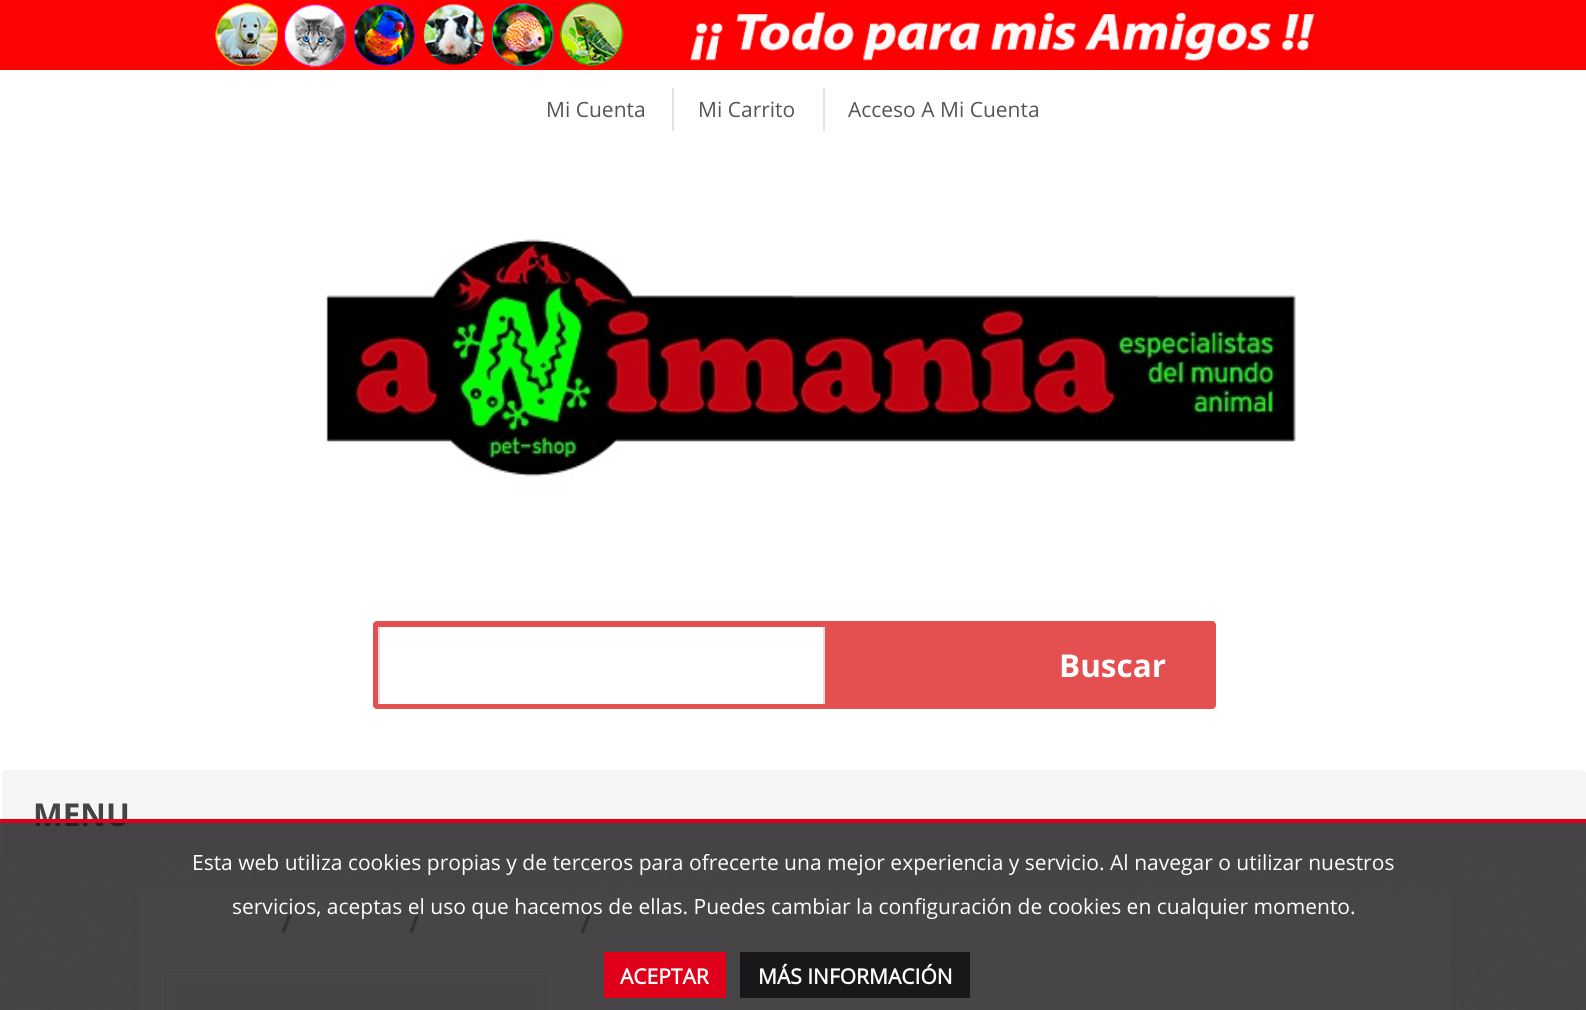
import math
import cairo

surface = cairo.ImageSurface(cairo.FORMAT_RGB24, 1586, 1010)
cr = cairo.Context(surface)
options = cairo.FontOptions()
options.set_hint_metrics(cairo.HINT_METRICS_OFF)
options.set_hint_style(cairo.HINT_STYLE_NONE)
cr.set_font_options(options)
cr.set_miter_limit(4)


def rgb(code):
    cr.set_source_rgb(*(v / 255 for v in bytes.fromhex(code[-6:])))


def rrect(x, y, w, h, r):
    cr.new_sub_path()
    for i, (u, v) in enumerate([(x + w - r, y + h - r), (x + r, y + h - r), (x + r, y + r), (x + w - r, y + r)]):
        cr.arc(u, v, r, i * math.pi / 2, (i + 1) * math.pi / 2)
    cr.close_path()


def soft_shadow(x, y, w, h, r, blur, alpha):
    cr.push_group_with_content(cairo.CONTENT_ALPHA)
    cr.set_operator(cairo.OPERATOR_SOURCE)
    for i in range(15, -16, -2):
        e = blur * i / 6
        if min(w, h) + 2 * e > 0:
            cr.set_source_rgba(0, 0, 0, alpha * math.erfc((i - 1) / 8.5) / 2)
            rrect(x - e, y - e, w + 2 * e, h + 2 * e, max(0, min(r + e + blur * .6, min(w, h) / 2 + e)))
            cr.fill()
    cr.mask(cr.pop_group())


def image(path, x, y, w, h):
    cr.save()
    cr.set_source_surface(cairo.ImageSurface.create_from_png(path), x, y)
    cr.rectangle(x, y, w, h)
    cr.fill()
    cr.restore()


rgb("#ffffff")
cr.paint()
image("img/1.png", 0, 859, 1586, 151)
rgb("#ff0203")
cr.rectangle(0, 0, 1586, 70)
cr.fill()
image("img/2.png", 215, 2, 1100, 65)
rgb("#e2e2e2")
cr.rectangle(672, 88, 2, 43)
cr.fill()
cr.rectangle(823, 88, 2, 43)
cr.fill()
image("img/3.png", 325, 239, 971, 251)
rgb("#e44f4f")
rrect(373, 621, 843, 88, 4)
cr.fill()
for x, y, w, h, color in [
    (380, 627, 443, 77, "#ffffff"),
    (823, 627, 2, 77, "#dddddd"),
    (378, 627, 2, 77, "#dddddd"),
]:
    rgb(color)
    cr.rectangle(x, y, w, h)
    cr.fill()
rgb("#f5f5f5")
rrect(2, 770, 1584, 88, 4)
cr.fill()
rgb("#ededed")
soft_shadow(135, 898, 1302, 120, 0, 2.5, 1)
soft_shadow(152, 898, 1302, 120, 0, 2.5, 1)
rgb("#ffffff")
cr.rectangle(138, 893, 1313, 117)
cr.fill()
image("img/4.png", 281, 915, 10, 18)
image("img/5.png", 409, 915, 10, 18)
image("img/6.png", 581, 915, 9, 18)
rrect(166, 972, 381, 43, 3)
rgb("#f1f1f1")
cr.stroke()
rgb("#fbfbfb")
cr.rectangle(175, 982, 362, 28)
cr.fill()
cr.select_font_face("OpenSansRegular")
cr.set_font_size(21)
rgb("#555555")
for x, y, s in [
    (546, 117, "Mi Cuenta"),
    (698, 117, "Mi Carrito"),
    (848, 117, "Acceso A Mi Cuenta"),
]:
    cr.move_to(x, y)
    cr.show_text(s)
cr.select_font_face("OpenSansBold", cairo.FONT_SLANT_NORMAL, cairo.FONT_WEIGHT_BOLD)
cr.set_font_size(31.5)
rgb("#ffffff")
cr.move_to(1059, 677)
cr.show_text("Buscar")
rgb("#444444")
cr.move_to(33, 826)
cr.show_text("MENU")
cr.set_source_rgba(0.102, 0.09, 0.106, 0.8)
cr.rectangle(0, 823, 1586, 187)
cr.fill()
rgb("#e0001a")
cr.rectangle(0, 819, 1586, 4)
cr.fill()
cr.select_font_face("OpenSansRegular")
cr.set_font_size(21)
rgb("#ffffff")
cr.move_to(192, 870)
cr.show_text("Esta web utiliza cookies propias y de terceros para ofrecerte una mejor experiencia y servicio. Al navegar o utilizar nuestros")
cr.move_to(232, 914)
cr.show_text("servicios, aceptas el uso que hacemos de ellas. Puedes cambiar la configuración de cookies en cualquier momento.")
rgb("#e0001a")
cr.rectangle(604, 952, 122, 46)
cr.fill()
cr.select_font_face("OpenSansRegular", cairo.FONT_SLANT_NORMAL, cairo.FONT_WEIGHT_BOLD)
rgb("#ffffff")
cr.move_to(620, 984)
cr.show_text("ACEPTAR")
rgb("#1a171b")
cr.rectangle(740, 952, 230, 46)
cr.fill()
rgb("#ffffff")
cr.move_to(758, 984)
cr.show_text("MÁS INFORMACIÓN")
surface.write_to_png("page.png")
